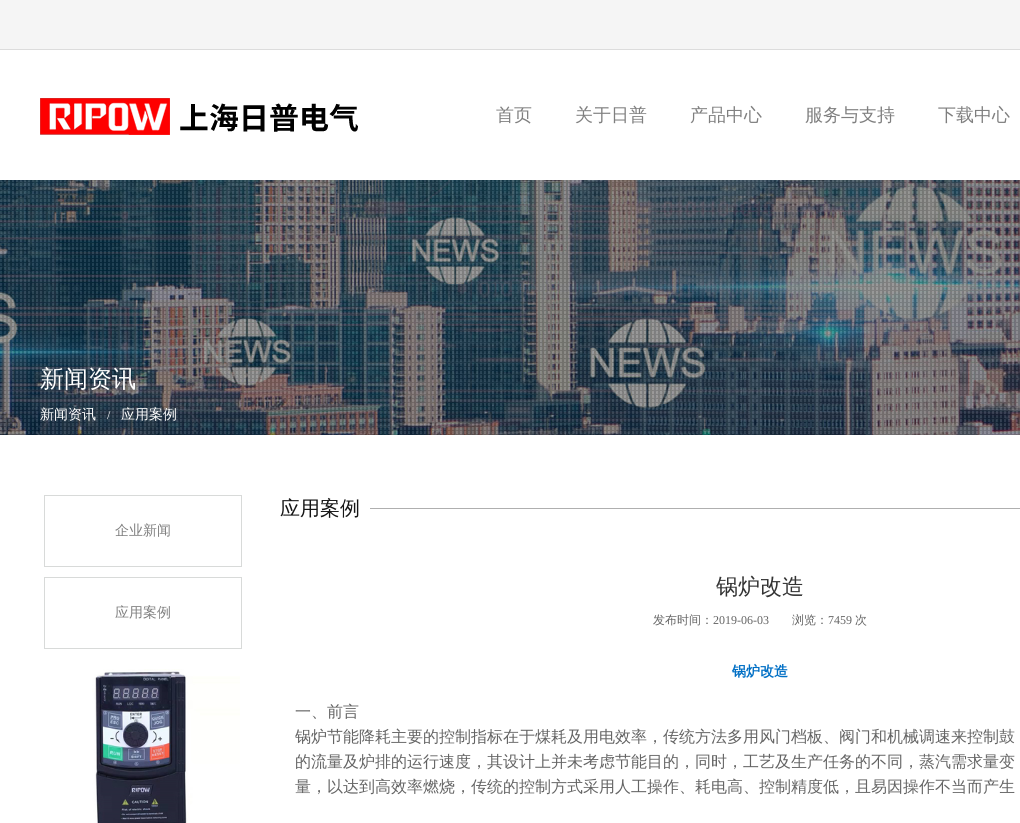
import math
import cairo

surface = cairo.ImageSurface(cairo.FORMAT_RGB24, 1020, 823)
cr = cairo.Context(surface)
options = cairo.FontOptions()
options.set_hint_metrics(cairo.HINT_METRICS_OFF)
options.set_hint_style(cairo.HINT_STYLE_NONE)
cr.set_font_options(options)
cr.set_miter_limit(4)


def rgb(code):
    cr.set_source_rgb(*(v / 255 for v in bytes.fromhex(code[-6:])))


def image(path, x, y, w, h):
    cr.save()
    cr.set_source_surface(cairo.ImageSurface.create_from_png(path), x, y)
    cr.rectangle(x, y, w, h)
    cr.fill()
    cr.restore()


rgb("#ffffff")
cr.paint()
rgb("#f5f5f5")
cr.rectangle(0, 0, 1020, 49)
cr.fill()
rgb("#dcdcdc")
cr.rectangle(0, 49, 1020, 1)
cr.fill()
image("img/1.png", 40, 98, 318, 37)
image("img/2.png", 0, 180, 1020, 255)
cr.rectangle(44.5, 495.5, 197, 71)
rgb("#d8dad9")
cr.set_line_width(1)
cr.stroke()
cr.rectangle(44.5, 577.5, 197, 71)
cr.stroke()
image("img/3.png", 92, 669, 148, 154)
rgb("#afafaf")
cr.rectangle(370, 508, 650, 1)
cr.fill()
cr.select_font_face("WenQuanYi Zen Hei Medium")
cr.set_font_size(18)
rgb("#7f7f7f")
for x, y, s in [
    (496, 121, "首页"),
    (575, 121, "关于日普"),
    (690, 121, "产品中心"),
    (805, 121, "服务与支持"),
    (938, 121, "下载中心"),
]:
    cr.move_to(x, y)
    cr.show_text(s)
cr.set_font_size(24)
rgb("#ffffff")
cr.move_to(40, 387)
cr.show_text("新闻资讯")
cr.set_font_size(14)
cr.move_to(40, 419)
cr.show_text("新闻资讯")
cr.select_font_face("Liberation Serif")
cr.set_font_size(12)
cr.move_to(107, 419)
cr.show_text("/")
cr.select_font_face("WenQuanYi Zen Hei Medium")
cr.set_font_size(14)
cr.move_to(121, 419)
cr.show_text("应用案例")
rgb("#7f7f7f")
cr.move_to(115, 535)
cr.show_text("企业新闻")
cr.move_to(115, 617)
cr.show_text("应用案例")
cr.set_font_size(20)
rgb("#151515")
cr.move_to(280, 515)
cr.show_text("应用案例")
cr.set_font_size(22)
rgb("#333333")
cr.move_to(716, 594)
cr.show_text("锅炉改造")
cr.set_font_size(12)
rgb("#646464")
cr.move_to(653, 624)
cr.show_text("发布时间：")
cr.select_font_face("Liberation Serif")
cr.move_to(713, 624)
cr.show_text("2019-06-03")
cr.select_font_face("WenQuanYi Zen Hei Medium")
cr.move_to(792, 624)
cr.show_text("浏览：")
cr.select_font_face("Liberation Serif")
cr.move_to(828, 624)
cr.show_text("7459")
cr.select_font_face("WenQuanYi Zen Hei Medium")
cr.move_to(855, 624)
cr.show_text("次")
cr.select_font_face("WenQuanYi Zen Hei", cairo.FONT_SLANT_NORMAL, cairo.FONT_WEIGHT_BOLD)
cr.set_font_size(14)
rgb("#006fc5")
cr.move_to(732, 676)
cr.show_text("锅炉改造")
cr.select_font_face("WenQuanYi Zen Hei Medium")
cr.set_font_size(16)
rgb("#646464")
for x, y, s in [
    (295, 717, "一、前言"),
    (295, 742, "锅炉节能降耗主要的控制指标在于煤耗及用电效率，传统方法多用风门档板、阀门和机械调速来控制鼓"),
    (295, 767, "的流量及炉排的运行速度，其设计上并未考虑节能目的，同时，工艺及生产任务的不同，蒸汽需求量变"),
    (295, 792, "量，以达到高效率燃烧，传统的控制方式采用人工操作、耗电高、控制精度低，且易因操作不当而产生"),
]:
    cr.move_to(x, y)
    cr.show_text(s)
surface.write_to_png("page.png")
